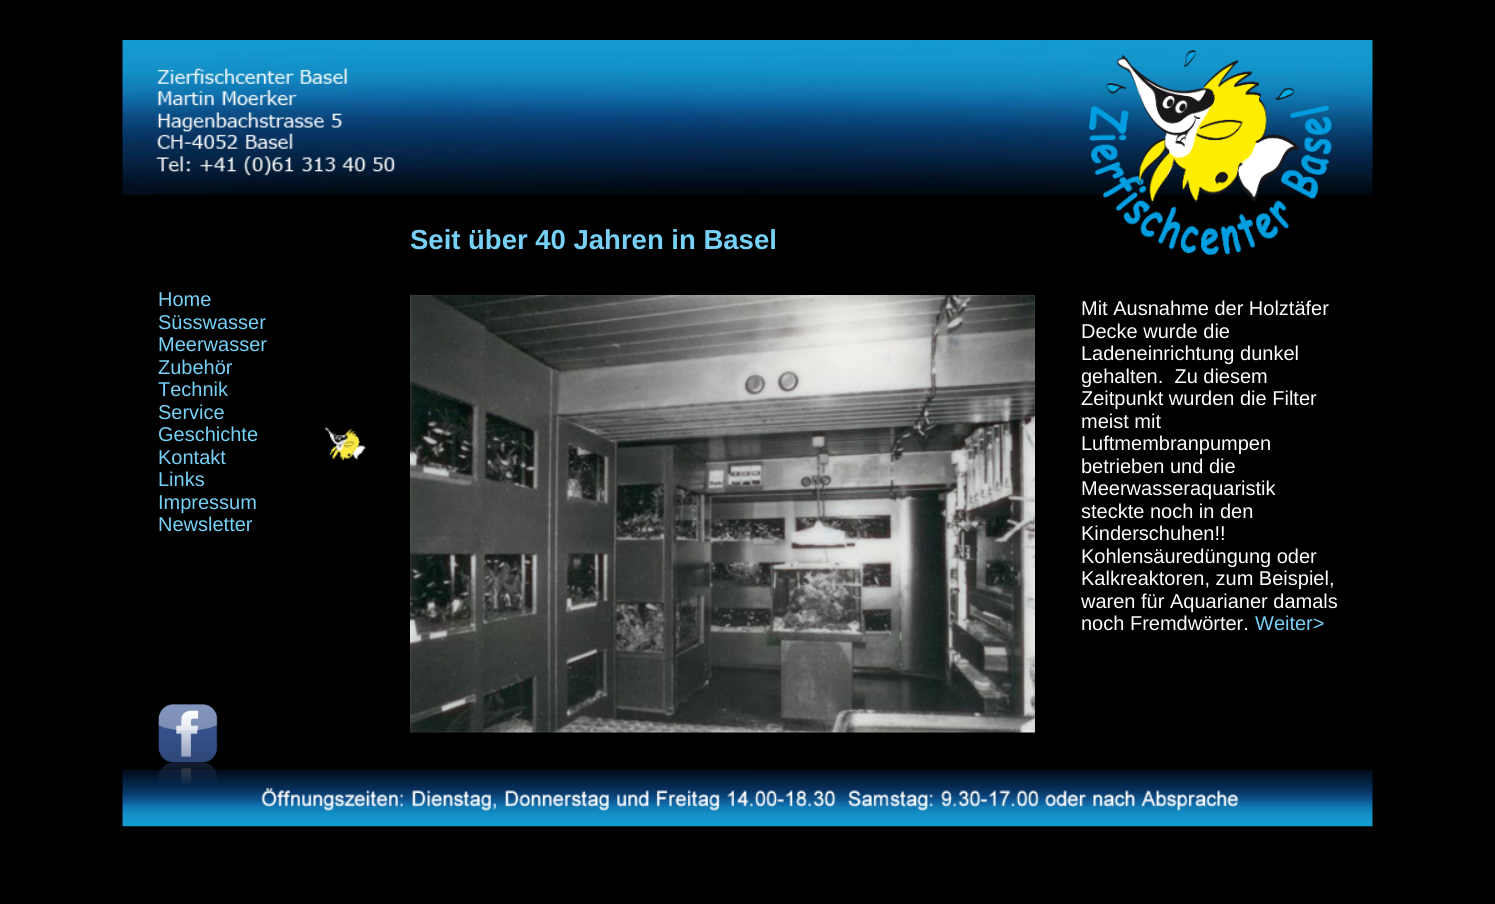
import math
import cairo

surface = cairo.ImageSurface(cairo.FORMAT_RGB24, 1495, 904)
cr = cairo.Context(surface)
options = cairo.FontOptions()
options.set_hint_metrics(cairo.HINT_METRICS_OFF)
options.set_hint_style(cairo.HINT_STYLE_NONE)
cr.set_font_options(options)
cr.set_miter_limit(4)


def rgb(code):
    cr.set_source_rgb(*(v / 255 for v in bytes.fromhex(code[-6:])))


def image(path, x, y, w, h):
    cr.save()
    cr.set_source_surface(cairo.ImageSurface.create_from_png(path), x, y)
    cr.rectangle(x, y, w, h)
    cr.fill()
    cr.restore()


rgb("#000000")
cr.paint()
image("img/1.png", 122, 40, 1251, 155)
image("img/2.png", 1088, 50, 244, 205)
image("img/3.png", 122, 770, 1251, 57)
image("img/4.png", 410, 295, 625, 438)
image("img/5.png", 158, 704, 60, 80)
image("img/6.png", 324, 427, 43, 34)
cr.select_font_face("Liberation Sans", cairo.FONT_SLANT_NORMAL, cairo.FONT_WEIGHT_BOLD)
cr.set_font_size(27.5)
rgb("#77d1f7")
cr.move_to(410, 249)
cr.show_text("Seit über 40 Jahren in Basel")
cr.select_font_face("Liberation Sans")
cr.set_font_size(20)
for x, y, s in [
    (158, 306, "Home"),
    (158, 329, "Süsswasser"),
    (158, 351, "Meerwasser"),
    (158, 374, "Zubehör"),
    (158, 396, "Technik"),
    (158, 419, "Service"),
    (158, 441, "Geschichte"),
    (158, 464, "Kontakt"),
    (158, 486, "Links"),
    (158, 509, "Impressum"),
    (158, 531, "Newsletter"),
]:
    cr.move_to(x, y)
    cr.show_text(s)
rgb("#ffffff")
for x, y, s in [
    (1081, 315, "Mit Ausnahme der Holztäfer"),
    (1081, 338, "Decke wurde die"),
    (1081, 360, "Ladeneinrichtung dunkel"),
    (1081, 383, "gehalten.  Zu diesem"),
    (1081, 405, "Zeitpunkt wurden die Filter"),
    (1081, 428, "meist mit"),
    (1081, 450, "Luftmembranpumpen"),
    (1081, 473, "betrieben und die"),
    (1081, 495, "Meerwasseraquaristik"),
    (1081, 518, "steckte noch in den"),
    (1081, 540, "Kinderschuhen!!"),
    (1081, 563, "Kohlensäuredüngung oder"),
    (1081, 585, "Kalkreaktoren, zum Beispiel,"),
    (1081, 608, "waren für Aquarianer damals"),
    (1081, 630, "noch Fremdwörter."),
]:
    cr.move_to(x, y)
    cr.show_text(s)
rgb("#77d1f7")
cr.move_to(1255, 630)
cr.show_text("Weiter>")
surface.write_to_png("page.png")
